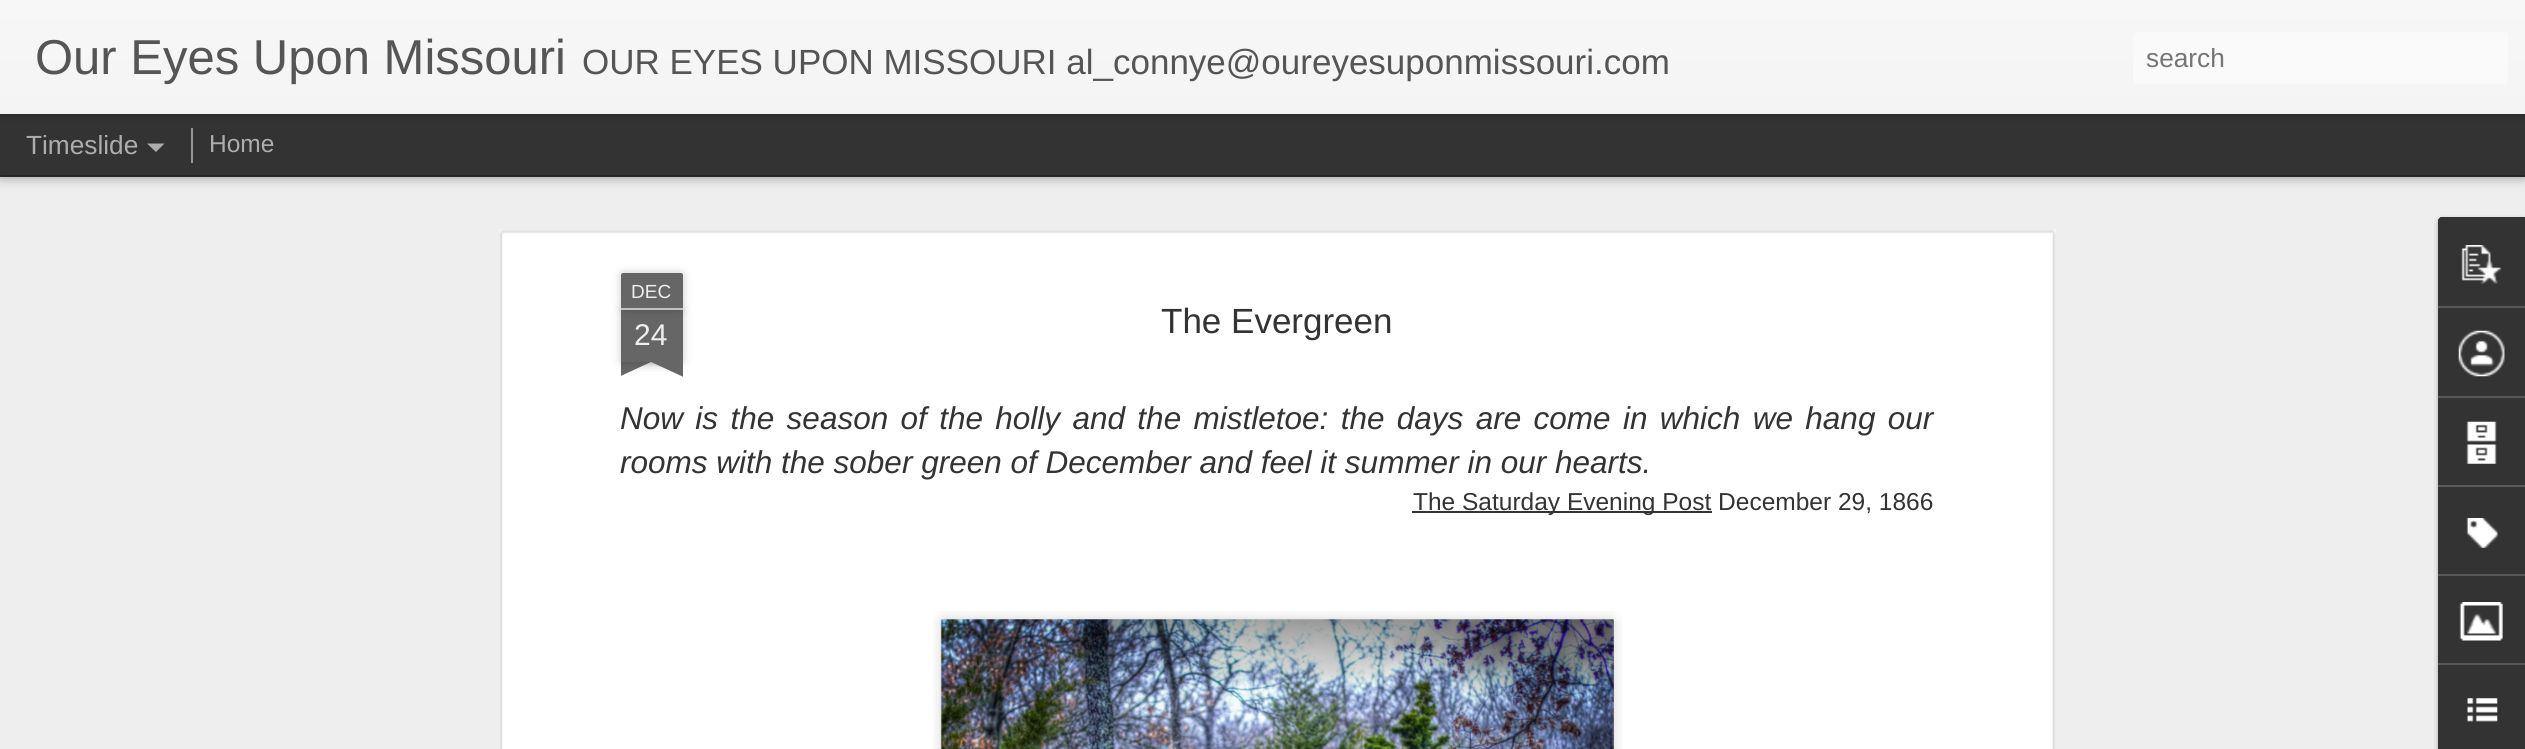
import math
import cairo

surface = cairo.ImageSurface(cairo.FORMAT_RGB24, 2525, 749)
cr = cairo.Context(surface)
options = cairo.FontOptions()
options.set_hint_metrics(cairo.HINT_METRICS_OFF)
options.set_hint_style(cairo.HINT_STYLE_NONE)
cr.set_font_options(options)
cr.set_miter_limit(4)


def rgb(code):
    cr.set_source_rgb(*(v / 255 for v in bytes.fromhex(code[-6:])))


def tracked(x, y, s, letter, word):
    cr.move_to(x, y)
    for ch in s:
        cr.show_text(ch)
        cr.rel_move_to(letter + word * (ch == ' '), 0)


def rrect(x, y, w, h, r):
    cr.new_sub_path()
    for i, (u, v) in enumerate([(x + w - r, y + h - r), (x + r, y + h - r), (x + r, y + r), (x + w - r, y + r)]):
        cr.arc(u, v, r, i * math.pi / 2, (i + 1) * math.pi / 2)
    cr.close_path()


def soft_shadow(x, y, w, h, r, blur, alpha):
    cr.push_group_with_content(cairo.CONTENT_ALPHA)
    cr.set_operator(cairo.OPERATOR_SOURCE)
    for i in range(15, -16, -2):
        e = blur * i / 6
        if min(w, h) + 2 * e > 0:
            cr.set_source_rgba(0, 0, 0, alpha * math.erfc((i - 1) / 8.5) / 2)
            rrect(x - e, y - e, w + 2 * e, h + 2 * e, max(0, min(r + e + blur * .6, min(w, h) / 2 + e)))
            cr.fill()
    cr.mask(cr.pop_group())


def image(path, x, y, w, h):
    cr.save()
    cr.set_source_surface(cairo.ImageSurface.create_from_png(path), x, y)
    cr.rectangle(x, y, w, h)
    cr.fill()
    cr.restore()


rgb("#333333")
cr.paint()
rgb("#eeeeee")
cr.rectangle(0, 177, 2525, 572)
cr.fill()
rgb("#000000")
soft_shadow(0, 114, 2525, 61, 0, 7, 0.5)
rgb("#333333")
cr.rectangle(0, 114, 2525, 61)
cr.fill()
rgb("#999999")
cr.rectangle(191, 128, 2, 35)
cr.fill()
rgb("#000000")
soft_shadow(0, 0, 2525, 114, 0, 4.5, 0.3)
gradient = cairo.LinearGradient(0, 0, 0, 114)
gradient.add_color_stop_rgba(0, 0.969, 0.969, 0.969, 1)
gradient.add_color_stop_rgba(1, 0.957, 0.957, 0.957, 1)
cr.set_source(gradient)
cr.rectangle(0, 0, 2525, 114)
cr.fill()
rgb("#fafafa")
rrect(2133, 32, 375, 52, 5)
cr.fill()
rgb("#adadad")
cr.new_path()
cr.move_to(147, 143.5)
cr.line_to(164.5, 143.5)
cr.line_to(156, 152)
cr.close_path()
cr.fill()
rgb("#ffffff")
cr.rectangle(499, 229, 1557, 520)
cr.fill()
image("img/1.png", 499, 229, 1557, 520)
rgb("#000000")
soft_shadow(621, 310, 62, 52, 0, 4.5, 0.2)
rgb("#666666")
cr.rectangle(621, 310, 62, 52)
cr.fill()
rgb("#000000")
soft_shadow(621, 273, 62, 37, 2, 4.5, 0.2)
rgb("#666666")
cr.new_path()
cr.move_to(623, 273)
cr.line_to(681, 273)
cr.curve_to(682, 273, 683, 274, 683, 275)
cr.line_to(683, 310)
cr.line_to(621, 310)
cr.line_to(621, 275)
cr.curve_to(621, 274, 622, 273, 623, 273)
cr.close_path()
cr.fill()
rgb("#c2c2c2")
cr.rectangle(621, 308, 62, 2)
cr.fill()
cr.save()
cr.rectangle(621, 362, 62, 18)
cr.clip()
rgb("#000000")
soft_shadow(606, 345, 87, 17, 0, 4.5, 0.2)
cr.restore()
cr.save()
cr.rectangle(621, 362, 62, 18)
cr.clip()
rgb("#666666")
cr.new_path()
cr.move_to(605, 364)
cr.line_to(684, 327)
cr.line_to(692, 343)
cr.line_to(612, 380)
cr.close_path()
cr.fill()
cr.restore()
cr.save()
cr.rectangle(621, 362, 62, 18)
cr.clip()
rgb("#000000")
soft_shadow(611, 345, 87, 17, 0, 4.5, 0.2)
cr.restore()
cr.save()
cr.rectangle(621, 362, 62, 18)
cr.clip()
rgb("#666666")
cr.new_path()
cr.move_to(618, 327)
cr.line_to(697, 364)
cr.line_to(690, 380)
cr.line_to(610, 343)
cr.close_path()
cr.fill()
cr.restore()
rgb("#333333")
cr.rectangle(1412, 511, 300, 2)
cr.fill()
image("img/2.png", 933, 611, 689, 138)
image("img/3.png", 941, 619, 673, 130)
rgb("#000000")
soft_shadow(2438, 219, 87, 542, 4, 2.5, 0.3)
rgb("#333333")
cr.new_path()
cr.move_to(2442, 217)
cr.line_to(2525, 217)
cr.line_to(2525, 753)
cr.line_to(2442, 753)
cr.curve_to(2440, 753, 2438, 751, 2438, 749)
cr.line_to(2438, 221)
cr.curve_to(2438, 219, 2440, 217, 2442, 217)
cr.close_path()
cr.fill()
cr.new_path()
cr.move_to(2442, 217)
cr.line_to(2525, 217)
cr.line_to(2525, 306)
cr.line_to(2438, 306)
cr.line_to(2438, 221)
cr.curve_to(2438, 219, 2440, 217, 2442, 217)
cr.close_path()
cr.fill()
image("img/4.png", 2461, 245, 40, 39)
rgb("#585858")
cr.rectangle(2438, 306, 87, 2)
cr.fill()
image("img/5.png", 2458, 330, 47, 47)
cr.rectangle(2438, 396, 87, 2)
cr.fill()
image("img/6.png", 2466, 421, 31, 43)
cr.rectangle(2438, 485, 87, 2)
cr.fill()
image("img/7.png", 2466, 518, 32, 30)
cr.rectangle(2438, 574, 87, 2)
cr.fill()
image("img/8.png", 2459, 602, 44, 39)
cr.rectangle(2438, 663, 87, 2)
cr.fill()
image("img/9.png", 2467, 698, 31, 24)
cr.select_font_face("Liberation Sans")
cr.set_font_size(49)
rgb("#555555")
cr.move_to(35, 74)
cr.show_text("Our Eyes Upon Missouri")
cr.set_font_size(35)
cr.move_to(582, 74)
cr.show_text("OUR EYES UPON MISSOURI al_connye@oureyesuponmissouri.com")
cr.set_font_size(26.25)
rgb("#757575")
cr.move_to(2146, 67)
cr.show_text("search")
rgb("#adadad")
cr.move_to(26, 154)
cr.show_text("Timeslide")
cr.set_font_size(24.5)
cr.move_to(209, 152)
cr.show_text("Home")
cr.set_font_size(19)
rgb("#eeeeee")
cr.move_to(631, 298)
cr.show_text("DEC")
cr.set_font_size(30)
cr.move_to(634, 345)
cr.show_text("24")
cr.set_font_size(35)
rgb("#333333")
cr.move_to(1161, 333)
cr.show_text("The Evergreen")
cr.select_font_face("Liberation Sans", cairo.FONT_SLANT_ITALIC)
cr.set_font_size(31.5)
tracked(620, 429, "Now is the season of the holly and the mistletoe: the days are come in which we hang our", 0, 3.6)
cr.move_to(620, 473)
cr.show_text("rooms with the sober green of December and feel it summer in our hearts.")
cr.select_font_face("Liberation Sans")
cr.set_font_size(24.5)
cr.move_to(1413, 510)
cr.show_text("The Saturday Evening Post December 29, 1866")
surface.write_to_png("page.png")
